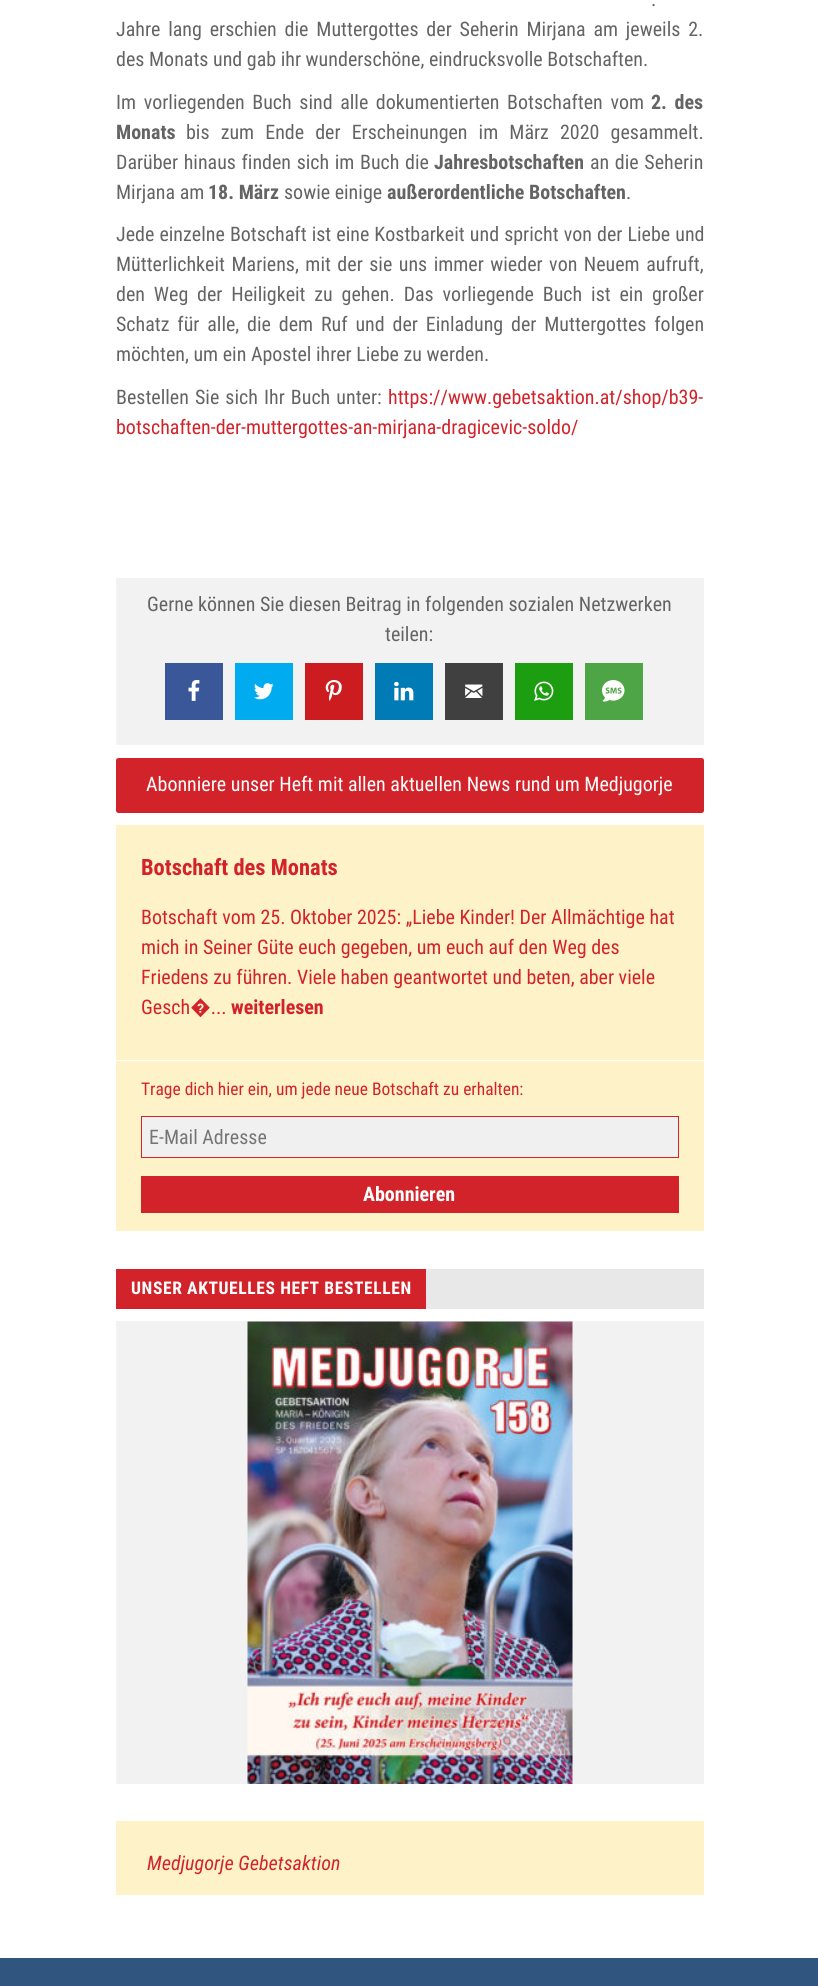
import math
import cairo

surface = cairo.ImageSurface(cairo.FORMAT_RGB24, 818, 1986)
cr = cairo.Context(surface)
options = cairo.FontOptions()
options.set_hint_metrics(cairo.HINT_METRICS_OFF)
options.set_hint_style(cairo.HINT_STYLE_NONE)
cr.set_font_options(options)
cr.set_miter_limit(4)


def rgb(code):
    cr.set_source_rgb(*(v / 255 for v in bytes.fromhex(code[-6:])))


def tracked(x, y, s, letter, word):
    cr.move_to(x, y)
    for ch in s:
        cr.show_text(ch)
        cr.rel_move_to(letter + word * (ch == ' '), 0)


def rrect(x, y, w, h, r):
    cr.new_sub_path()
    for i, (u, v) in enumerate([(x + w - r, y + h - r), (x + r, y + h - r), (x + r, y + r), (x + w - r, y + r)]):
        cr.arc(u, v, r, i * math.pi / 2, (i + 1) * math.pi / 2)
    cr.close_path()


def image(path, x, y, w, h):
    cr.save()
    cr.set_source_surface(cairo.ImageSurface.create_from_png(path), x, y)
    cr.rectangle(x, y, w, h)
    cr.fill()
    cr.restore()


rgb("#ffffff")
cr.paint()
rgb("#f2f2f2")
cr.rectangle(116, 578, 588, 167)
cr.fill()
rgb("#3a579a")
cr.rectangle(165, 663, 58, 57)
cr.fill()
image("img/1.png", 188, 680, 12, 21)
rgb("#00abf0")
cr.rectangle(235, 663, 58, 57)
cr.fill()
image("img/2.png", 254, 683, 20, 17)
rgb("#cd1c1f")
cr.rectangle(305, 663, 58, 57)
cr.fill()
image("img/3.png", 325, 680, 17, 21)
rgb("#007bb6")
cr.rectangle(375, 663, 58, 57)
cr.fill()
image("img/4.png", 394, 681, 20, 20)
rgb("#404040")
cr.rectangle(445, 663, 58, 57)
cr.fill()
image("img/5.png", 465, 684, 18, 14)
rgb("#1d9e11")
cr.rectangle(515, 663, 58, 57)
cr.fill()
image("img/6.png", 534, 681, 20, 20)
rgb("#4ea546")
cr.rectangle(585, 663, 58, 57)
cr.fill()
rgb("#d2232a")
rrect(116, 758, 588, 55, 2.5)
cr.fill()
rgb("#fef3c8")
cr.rectangle(116, 825, 588, 406)
cr.fill()
rgb("#ffffff")
cr.rectangle(116, 1060, 588, 1)
cr.fill()
rgb("#f0f0f0")
cr.rectangle(141.5, 1116.5, 537, 41)
cr.fill_preserve()
rgb("#d2232a")
cr.set_line_width(1)
cr.stroke()
for x, y, w, h, color in [
    (141, 1176, 538, 37, "#d2232a"),
    (426, 1269, 278, 40, "#e8e8e8"),
    (116, 1269, 310, 40, "#d2232a"),
    (116, 1321, 588, 463, "#f2f2f2"),
]:
    rgb(color)
    cr.rectangle(x, y, w, h)
    cr.fill()
image("img/7.png", 247, 1321, 326, 463)
rgb("#fef3c8")
cr.rectangle(116, 1821, 588, 74)
cr.fill()
rgb("#305680")
cr.rectangle(0, 1958, 818, 28)
cr.fill()
cr.select_font_face("Roboto Condensed")
cr.set_font_size(20)
rgb("#646464")
tracked(651, 6, ".", 0, 4)
tracked(116, 36, "Jahre lang erschien die Muttergottes der Seherin Mirjana am jeweils 2.", 0, 3.25)
cr.move_to(116, 66)
cr.show_text("des Monats und gab ihr wunderschöne, eindrucksvolle Botschaften.")
tracked(116, 109, "Im vorliegenden Buch sind alle dokumentierten Botschaften vom", 0, 3)
cr.select_font_face("Roboto Condensed", cairo.FONT_SLANT_NORMAL, cairo.FONT_WEIGHT_BOLD)
tracked(651, 109, "2. des", 0, 3)
cr.move_to(116, 139)
cr.show_text("Monats")
cr.select_font_face("Roboto Condensed")
tracked(186, 139, "bis zum Ende der Erscheinungen im März 2020 gesammelt.", 0, 6.5)
tracked(116, 169, "Darüber hinaus finden sich im Buch die", 0, 1)
cr.select_font_face("Roboto Condensed", cairo.FONT_SLANT_NORMAL, cairo.FONT_WEIGHT_BOLD)
cr.move_to(434, 169)
cr.show_text("Jahresbotschaften")
cr.select_font_face("Roboto Condensed")
tracked(590, 169, "an die Seherin", 0, 1)
cr.move_to(116, 199)
cr.show_text("Mirjana am")
cr.select_font_face("Roboto Condensed", cairo.FONT_SLANT_NORMAL, cairo.FONT_WEIGHT_BOLD)
cr.move_to(208, 199)
cr.show_text("18. März")
cr.select_font_face("Roboto Condensed")
cr.move_to(284, 199)
cr.show_text("sowie einige")
cr.select_font_face("Roboto Condensed", cairo.FONT_SLANT_NORMAL, cairo.FONT_WEIGHT_BOLD)
cr.move_to(387, 199)
cr.show_text("außerordentliche Botschaften")
cr.select_font_face("Roboto Condensed")
cr.move_to(626, 199)
cr.show_text(".")
tracked(116, 241, "Jede einzelne Botschaft ist eine Kostbarkeit und spricht von der Liebe und", 0, 0.5)
tracked(116, 271, "Mütterlichkeit Mariens, mit der sie uns immer wieder von Neuem aufruft,", 0, 1.9)
tracked(116, 301, "den Weg der Heiligkeit zu gehen. Das vorliegende Buch ist ein großer", 0, 4.25)
tracked(116, 331, "Schatz für alle, die dem Ruf und der Einladung der Muttergottes folgen", 0, 3.25)
cr.move_to(116, 361)
cr.show_text("möchten, um ein Apostel ihrer Liebe zu werden.")
tracked(116, 404, "Bestellen Sie sich Ihr Buch unter:", 0, 1.5)
rgb("#d2232a")
cr.move_to(388, 404)
cr.show_text("https://www.gebetsaktion.at/shop/b39-")
cr.move_to(116, 434)
cr.show_text("botschaften-der-muttergottes-an-mirjana-dragicevic-soldo/")
rgb("#646464")
cr.move_to(147, 611)
cr.show_text("Gerne können Sie diesen Beitrag in folgenden sozialen Netzwerken")
cr.move_to(385, 641)
cr.show_text("teilen:")
cr.select_font_face("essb")
cr.set_font_size(22.5)
rgb("#ffffff")
cr.move_to(602, 702)
cr.show_text("0")
cr.select_font_face("Roboto Condensed")
cr.set_font_size(20)
cr.move_to(146, 791)
cr.show_text("Abonniere unser Heft mit allen aktuellen News rund um Medjugorje")
cr.select_font_face("Roboto Condensed", cairo.FONT_SLANT_NORMAL, cairo.FONT_WEIGHT_BOLD)
cr.set_font_size(22.5)
rgb("#d2232a")
cr.move_to(141, 875)
cr.show_text("Botschaft des Monats")
cr.select_font_face("Roboto Condensed")
cr.set_font_size(20)
for x, y, s in [
    (141, 924, "Botschaft vom 25. Oktober 2025: „Liebe Kinder! Der Allmächtige hat"),
    (141, 954, "mich in Seiner Güte euch gegeben, um euch auf den Weg des"),
    (141, 984, "Friedens zu führen. Viele haben geantwortet und beten, aber viele"),
    (141, 1014, "Gesch�..."),
]:
    cr.move_to(x, y)
    cr.show_text(s)
cr.select_font_face("Roboto Condensed", cairo.FONT_SLANT_NORMAL, cairo.FONT_WEIGHT_BOLD)
cr.move_to(231, 1014)
cr.show_text("weiterlesen")
cr.select_font_face("Roboto Condensed")
cr.set_font_size(17.5)
cr.move_to(141, 1095)
cr.show_text("Trage dich hier ein, um jede neue Botschaft zu erhalten:")
cr.set_font_size(20)
rgb("#757575")
cr.move_to(149, 1144)
cr.show_text("E-Mail Adresse")
cr.select_font_face("Roboto Condensed", cairo.FONT_SLANT_NORMAL, cairo.FONT_WEIGHT_BOLD)
rgb("#ffffff")
cr.move_to(363, 1201)
cr.show_text("Abonnieren")
cr.set_font_size(17.5)
tracked(131, 1294, "UNSER AKTUELLES HEFT BESTELLEN", 0.6, 0)
cr.select_font_face("Roboto Condensed", cairo.FONT_SLANT_ITALIC)
cr.set_font_size(20)
rgb("#d2232a")
cr.move_to(147, 1870)
cr.show_text("Medjugorje Gebetsaktion")
surface.write_to_png("page.png")
